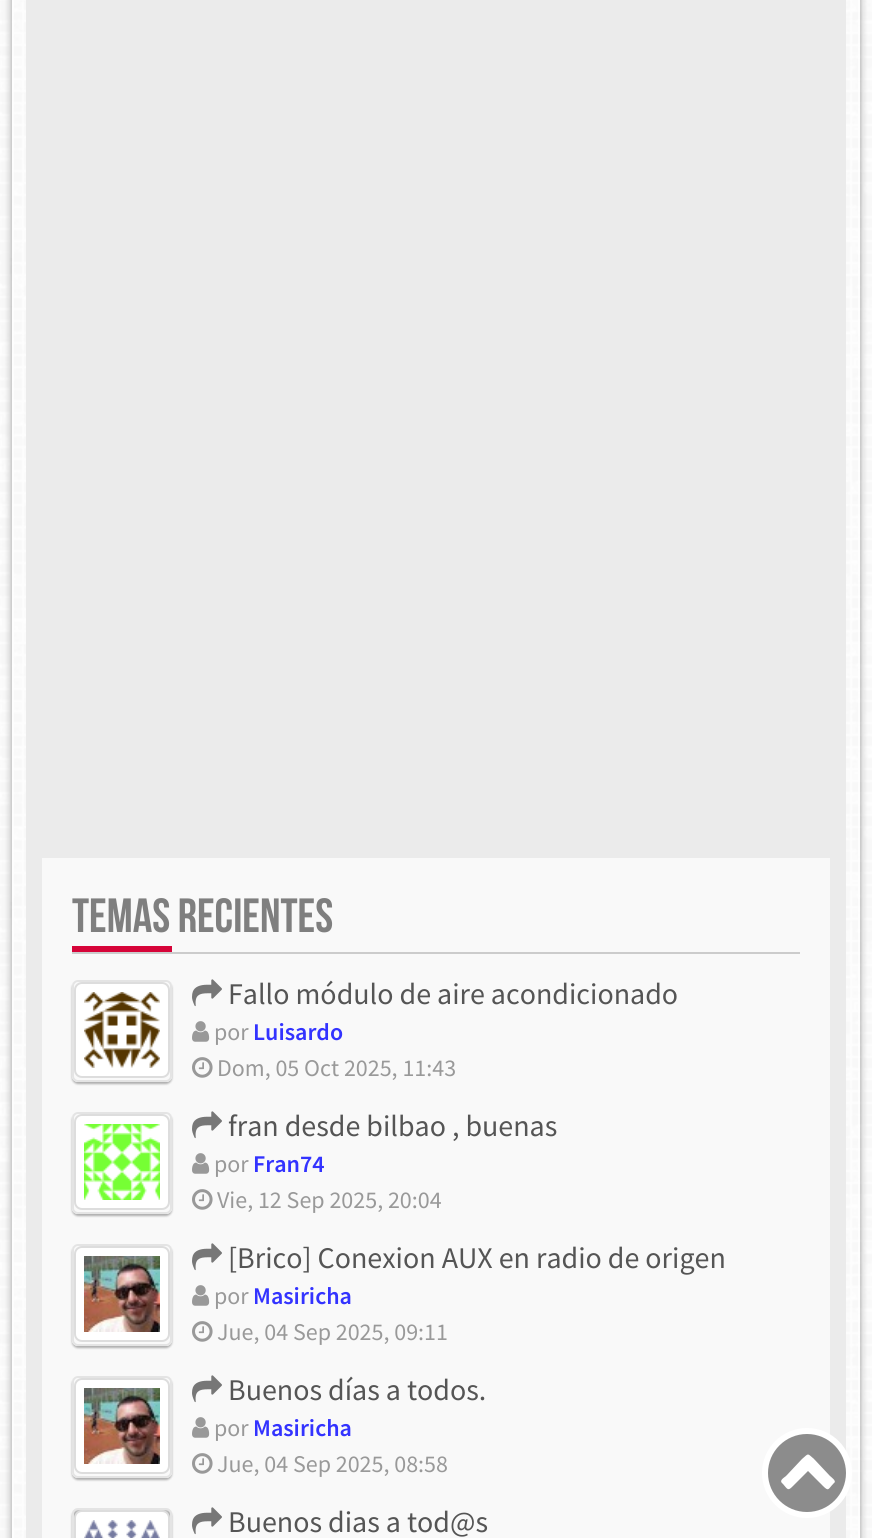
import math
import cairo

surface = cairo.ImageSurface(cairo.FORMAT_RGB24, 872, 1538)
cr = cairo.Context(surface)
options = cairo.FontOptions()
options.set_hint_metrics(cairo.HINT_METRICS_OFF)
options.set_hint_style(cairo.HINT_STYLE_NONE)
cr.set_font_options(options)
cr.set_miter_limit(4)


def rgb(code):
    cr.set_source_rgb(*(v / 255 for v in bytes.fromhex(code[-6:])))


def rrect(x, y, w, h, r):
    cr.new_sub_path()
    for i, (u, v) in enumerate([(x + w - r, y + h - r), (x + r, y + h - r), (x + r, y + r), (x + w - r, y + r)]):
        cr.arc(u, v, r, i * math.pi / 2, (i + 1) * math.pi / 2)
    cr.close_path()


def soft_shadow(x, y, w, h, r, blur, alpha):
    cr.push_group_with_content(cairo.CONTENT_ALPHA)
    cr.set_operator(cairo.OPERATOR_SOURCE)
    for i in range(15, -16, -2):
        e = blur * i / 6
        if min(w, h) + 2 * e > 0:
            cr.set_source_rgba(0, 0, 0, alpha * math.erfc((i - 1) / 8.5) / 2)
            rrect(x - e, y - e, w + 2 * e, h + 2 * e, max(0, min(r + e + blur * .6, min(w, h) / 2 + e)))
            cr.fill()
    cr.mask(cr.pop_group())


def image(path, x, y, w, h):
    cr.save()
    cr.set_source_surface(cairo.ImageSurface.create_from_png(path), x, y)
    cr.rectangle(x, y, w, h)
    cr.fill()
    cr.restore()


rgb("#ffffff")
cr.paint()
image("img/1.png", 0, 0, 872, 1538)
cr.save()
cr.set_fill_rule(cairo.FILL_RULE_EVEN_ODD)
cr.new_path()
cr.move_to(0, 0)
cr.line_to(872, 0)
cr.line_to(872, 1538)
cr.line_to(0, 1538)
cr.close_path()
cr.move_to(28, -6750)
cr.line_to(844, -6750)
cr.curve_to(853, -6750, 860, -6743, 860, -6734)
cr.line_to(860, 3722)
cr.curve_to(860, 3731, 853, 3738, 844, 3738)
cr.line_to(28, 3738)
cr.curve_to(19, 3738, 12, 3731, 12, 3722)
cr.line_to(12, -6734)
cr.curve_to(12, -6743, 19, -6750, 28, -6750)
cr.close_path()
cr.clip()
rgb("#323232")
soft_shadow(12, -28, 848, 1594, 16, 4, 0.5)
cr.restore()
cr.rectangle(13, -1, 846, 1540)
cr.set_source_rgba(1, 1, 1, 0.75)
cr.stroke()
for x, y, w, h, color in [
    (26, 0, 820, 1538, "#ebebeb"),
    (42, 858, 788, 680, "#f9f9f9"),
    (72, 952, 728, 2, "#cccccc"),
    (72, 946, 100, 6, "#d60439"),
]:
    rgb(color)
    cr.rectangle(x, y, w, h)
    cr.fill()
cr.save()
cr.set_fill_rule(cairo.FILL_RULE_EVEN_ODD)
cr.new_path()
cr.move_to(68, 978)
cr.line_to(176, 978)
cr.line_to(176, 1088)
cr.line_to(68, 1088)
cr.close_path()
cr.move_to(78, 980)
cr.line_to(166, 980)
cr.curve_to(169.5, 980, 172, 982.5, 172, 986)
cr.line_to(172, 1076)
cr.curve_to(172, 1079.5, 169.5, 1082, 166, 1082)
cr.line_to(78, 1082)
cr.curve_to(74.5, 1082, 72, 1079.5, 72, 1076)
cr.line_to(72, 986)
cr.curve_to(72, 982.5, 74.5, 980, 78, 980)
cr.close_path()
cr.clip()
rgb("#000000")
soft_shadow(72, 982, 100, 102, 6, 1, 0.3)
cr.restore()
rrect(73, 981, 98, 100, 5)
rgb("#e4e4e4")
cr.stroke()
rgb("#ffffff")
rrect(75, 983, 94, 94, 7)
cr.fill_preserve()
rgb("#dddddd")
cr.stroke()
image("img/2.png", 84, 992, 76, 76)
image("img/3.png", 192, 979, 30, 28)
image("img/4.png", 192, 1021, 18, 21)
image("img/5.png", 192, 1057, 21, 21)
cr.save()
cr.set_fill_rule(cairo.FILL_RULE_EVEN_ODD)
cr.new_path()
cr.move_to(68, 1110)
cr.line_to(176, 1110)
cr.line_to(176, 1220)
cr.line_to(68, 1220)
cr.close_path()
cr.move_to(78, 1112)
cr.line_to(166, 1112)
cr.curve_to(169.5, 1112, 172, 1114.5, 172, 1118)
cr.line_to(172, 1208)
cr.curve_to(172, 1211.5, 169.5, 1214, 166, 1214)
cr.line_to(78, 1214)
cr.curve_to(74.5, 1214, 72, 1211.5, 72, 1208)
cr.line_to(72, 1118)
cr.curve_to(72, 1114.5, 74.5, 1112, 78, 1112)
cr.close_path()
cr.clip()
rgb("#000000")
soft_shadow(72, 1114, 100, 102, 6, 1, 0.3)
cr.restore()
rrect(73, 1113, 98, 100, 5)
rgb("#e4e4e4")
cr.stroke()
rgb("#ffffff")
rrect(75, 1115, 94, 94, 7)
cr.fill_preserve()
rgb("#dddddd")
cr.stroke()
image("img/6.png", 84, 1124, 76, 76)
image("img/3.png", 192, 1111, 30, 28)
image("img/4.png", 192, 1153, 18, 21)
image("img/5.png", 192, 1189, 21, 21)
cr.save()
cr.set_fill_rule(cairo.FILL_RULE_EVEN_ODD)
cr.new_path()
cr.move_to(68, 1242)
cr.line_to(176, 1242)
cr.line_to(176, 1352)
cr.line_to(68, 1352)
cr.close_path()
cr.move_to(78, 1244)
cr.line_to(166, 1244)
cr.curve_to(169.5, 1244, 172, 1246.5, 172, 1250)
cr.line_to(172, 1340)
cr.curve_to(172, 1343.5, 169.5, 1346, 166, 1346)
cr.line_to(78, 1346)
cr.curve_to(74.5, 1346, 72, 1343.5, 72, 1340)
cr.line_to(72, 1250)
cr.curve_to(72, 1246.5, 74.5, 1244, 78, 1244)
cr.close_path()
cr.clip()
rgb("#000000")
soft_shadow(72, 1246, 100, 102, 6, 1, 0.3)
cr.restore()
rrect(73, 1245, 98, 100, 5)
rgb("#e4e4e4")
cr.stroke()
rgb("#ffffff")
rrect(75, 1247, 94, 94, 7)
cr.fill_preserve()
rgb("#dddddd")
cr.stroke()
image("img/7.png", 84, 1256, 76, 76)
image("img/3.png", 192, 1243, 30, 28)
image("img/4.png", 192, 1285, 18, 21)
image("img/5.png", 192, 1321, 21, 21)
cr.save()
cr.set_fill_rule(cairo.FILL_RULE_EVEN_ODD)
cr.new_path()
cr.move_to(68, 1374)
cr.line_to(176, 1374)
cr.line_to(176, 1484)
cr.line_to(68, 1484)
cr.close_path()
cr.move_to(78, 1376)
cr.line_to(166, 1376)
cr.curve_to(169.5, 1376, 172, 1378.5, 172, 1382)
cr.line_to(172, 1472)
cr.curve_to(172, 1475.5, 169.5, 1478, 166, 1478)
cr.line_to(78, 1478)
cr.curve_to(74.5, 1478, 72, 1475.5, 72, 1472)
cr.line_to(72, 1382)
cr.curve_to(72, 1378.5, 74.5, 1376, 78, 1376)
cr.close_path()
cr.clip()
rgb("#000000")
soft_shadow(72, 1378, 100, 102, 6, 1, 0.3)
cr.restore()
rrect(73, 1377, 98, 100, 5)
rgb("#e4e4e4")
cr.stroke()
rgb("#ffffff")
rrect(75, 1379, 94, 94, 7)
cr.fill_preserve()
rgb("#dddddd")
cr.stroke()
image("img/8.png", 84, 1388, 76, 76)
image("img/3.png", 192, 1375, 30, 28)
image("img/4.png", 192, 1417, 18, 21)
image("img/5.png", 192, 1453, 21, 21)
rgb("#000000")
soft_shadow(72, 1510, 100, 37, 6, 1, 0.3)
rrect(73, 1509, 98, 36, 5)
rgb("#e4e4e4")
cr.stroke()
rgb("#ffffff")
rrect(75, 1511, 94, 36, 7)
cr.fill_preserve()
rgb("#dddddd")
cr.stroke()
image("img/9.png", 84, 1520, 76, 18)
image("img/3.png", 192, 1507, 30, 28)
rgb("#8c8c8c")
cr.arc(807, 1473, 42, 0, 2 * math.pi)
cr.fill_preserve()
rgb("#ffffff")
cr.set_line_width(6)
cr.stroke()
cr.new_path()
cr.move_to(834, 1483)
cr.curve_to(828, 1489, 829, 1492, 823, 1486)
cr.line_to(808, 1471)
cr.line_to(793, 1486)
cr.curve_to(788, 1491, 788, 1490, 783, 1484)
cr.curve_to(779, 1481, 782, 1479, 786, 1476)
cr.line_to(802, 1459)
cr.curve_to(809, 1453, 807, 1453, 814, 1459)
cr.line_to(830, 1476)
cr.curve_to(831, 1477, 837, 1481, 834, 1483)
cr.close_path()
cr.fill()
cr.select_font_face("Bebas Neue")
cr.set_font_size(48)
rgb("#7f7f7f")
cr.move_to(72, 932)
cr.show_text("TEMAS RECIENTES")
cr.select_font_face("Source Sans Pro")
cr.set_font_size(30)
rgb("#555555")
cr.move_to(228, 1004)
cr.show_text("Fallo módulo de aire acondicionado")
cr.set_font_size(24)
rgb("#999999")
cr.move_to(214, 1040)
cr.show_text("por")
cr.select_font_face("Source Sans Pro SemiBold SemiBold")
rgb("#3333ff")
cr.move_to(253, 1040)
cr.show_text("Luisardo")
cr.select_font_face("Source Sans Pro")
rgb("#999999")
cr.move_to(217, 1076)
cr.show_text("Dom, 05 Oct 2025, 11:43")
cr.set_font_size(30)
rgb("#555555")
cr.move_to(228, 1136)
cr.show_text("fran desde bilbao , buenas")
cr.set_font_size(24)
rgb("#999999")
cr.move_to(214, 1172)
cr.show_text("por")
cr.select_font_face("Source Sans Pro SemiBold SemiBold")
rgb("#3333ff")
cr.move_to(253, 1172)
cr.show_text("Fran74")
cr.select_font_face("Source Sans Pro")
rgb("#999999")
cr.move_to(217, 1208)
cr.show_text("Vie, 12 Sep 2025, 20:04")
cr.set_font_size(30)
rgb("#555555")
cr.move_to(228, 1268)
cr.show_text("[Brico] Conexion AUX en radio de origen")
cr.set_font_size(24)
rgb("#999999")
cr.move_to(214, 1304)
cr.show_text("por")
cr.select_font_face("Source Sans Pro SemiBold SemiBold")
rgb("#3333ff")
cr.move_to(253, 1304)
cr.show_text("Masiricha")
cr.select_font_face("Source Sans Pro")
rgb("#999999")
cr.move_to(217, 1340)
cr.show_text("Jue, 04 Sep 2025, 09:11")
cr.set_font_size(30)
rgb("#555555")
cr.move_to(228, 1400)
cr.show_text("Buenos días a todos.")
cr.set_font_size(24)
rgb("#999999")
cr.move_to(214, 1436)
cr.show_text("por")
cr.select_font_face("Source Sans Pro SemiBold SemiBold")
rgb("#3333ff")
cr.move_to(253, 1436)
cr.show_text("Masiricha")
cr.select_font_face("Source Sans Pro")
rgb("#999999")
cr.move_to(217, 1472)
cr.show_text("Jue, 04 Sep 2025, 08:58")
cr.set_font_size(30)
rgb("#555555")
cr.move_to(228, 1532)
cr.show_text("Buenos dias a tod@s")
surface.write_to_png("page.png")
